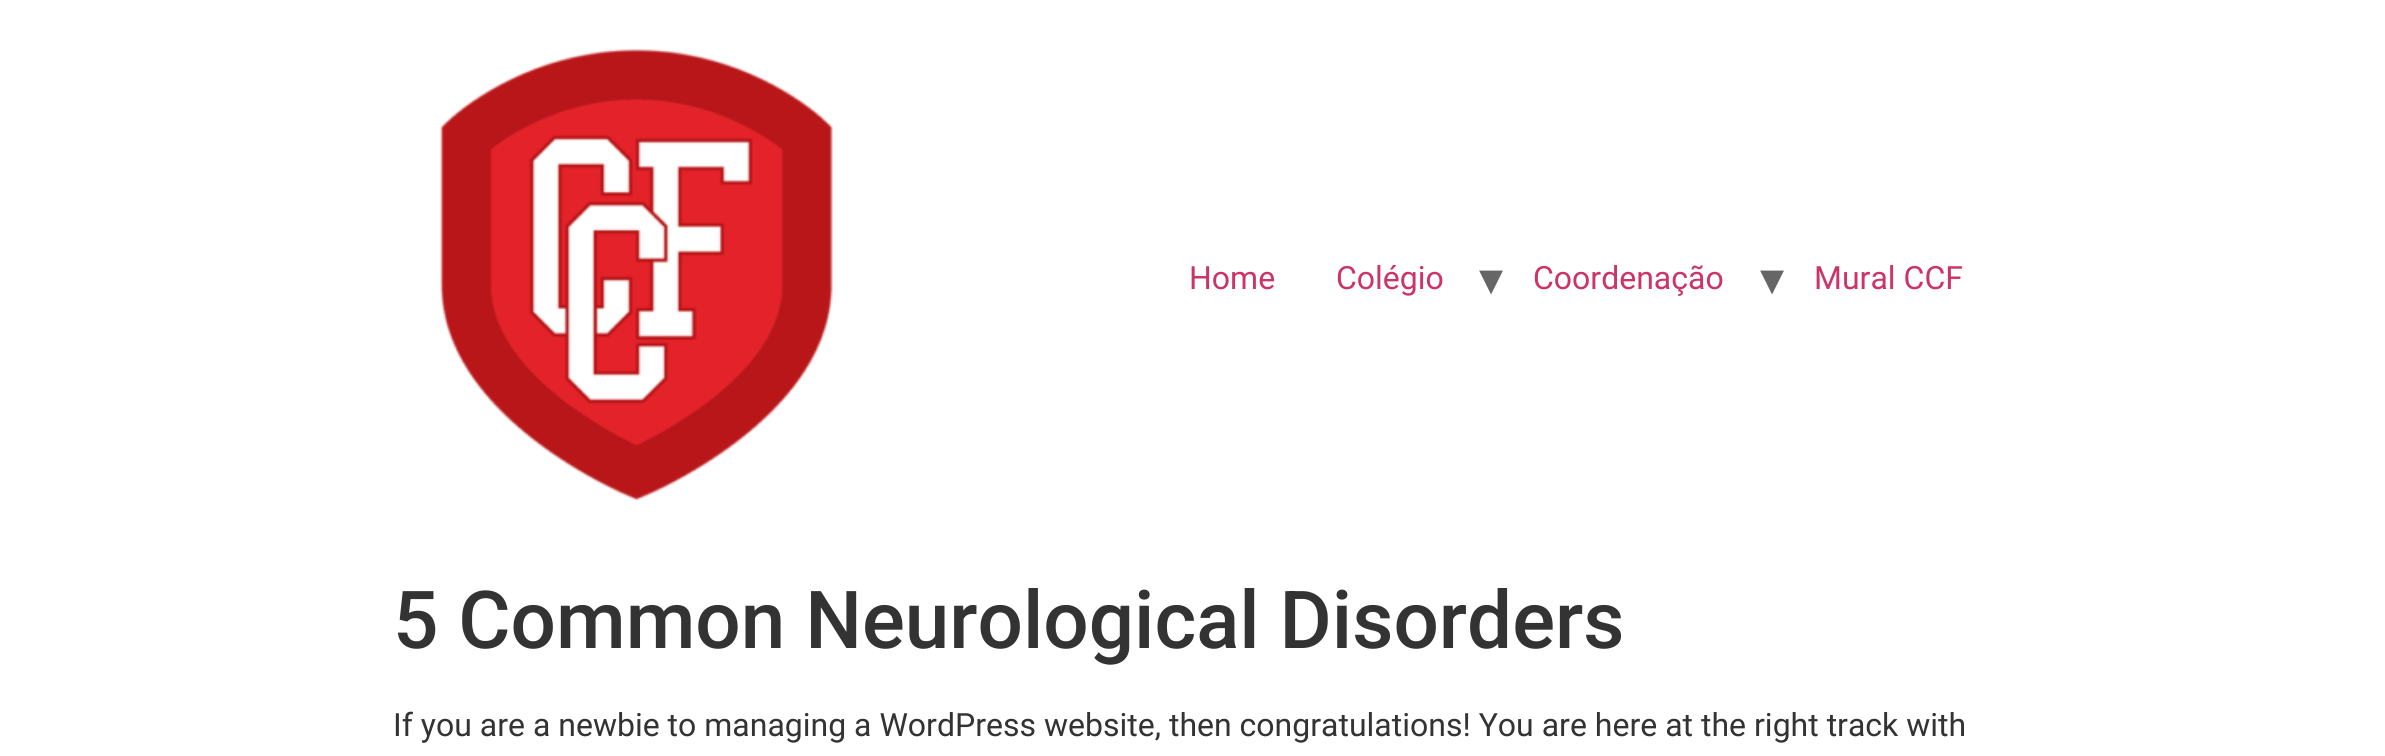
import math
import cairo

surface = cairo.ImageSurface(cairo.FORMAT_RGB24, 2385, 756)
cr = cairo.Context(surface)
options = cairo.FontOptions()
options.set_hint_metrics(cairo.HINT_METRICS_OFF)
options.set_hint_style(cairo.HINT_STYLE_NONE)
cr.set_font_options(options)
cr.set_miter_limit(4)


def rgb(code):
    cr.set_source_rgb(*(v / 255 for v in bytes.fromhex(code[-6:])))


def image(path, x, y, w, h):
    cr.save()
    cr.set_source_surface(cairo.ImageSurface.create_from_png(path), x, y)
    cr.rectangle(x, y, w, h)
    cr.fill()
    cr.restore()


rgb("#ffffff")
cr.paint()
image("img/1.png", 440, 49, 393, 452)
cr.select_font_face("Roboto")
cr.set_font_size(32)
rgb("#cc3366")
cr.move_to(1189, 289)
cr.show_text("Home")
cr.move_to(1336, 289)
cr.show_text("Colégio")
cr.select_font_face("DejaVu Sans")
cr.set_font_size(48)
rgb("#666666")
cr.move_to(1479, 295)
cr.show_text("▾")
cr.select_font_face("Roboto")
cr.set_font_size(32)
rgb("#cc3366")
cr.move_to(1533, 289)
cr.show_text("Coordenação")
cr.select_font_face("DejaVu Sans")
cr.set_font_size(48)
rgb("#666666")
cr.move_to(1760, 295)
cr.show_text("▾")
cr.select_font_face("Roboto")
cr.set_font_size(32)
rgb("#cc3366")
cr.move_to(1814, 289)
cr.show_text("Mural CCF")
cr.select_font_face("Roboto Medium")
cr.set_font_size(80)
rgb("#333333")
cr.move_to(393, 648)
cr.show_text("5 Common Neurological Disorders")
cr.select_font_face("Roboto")
cr.set_font_size(32)
cr.move_to(393, 736)
cr.show_text("If you are a newbie to managing a WordPress website, then congratulations! You are here at the right track with")
surface.write_to_png("page.png")
